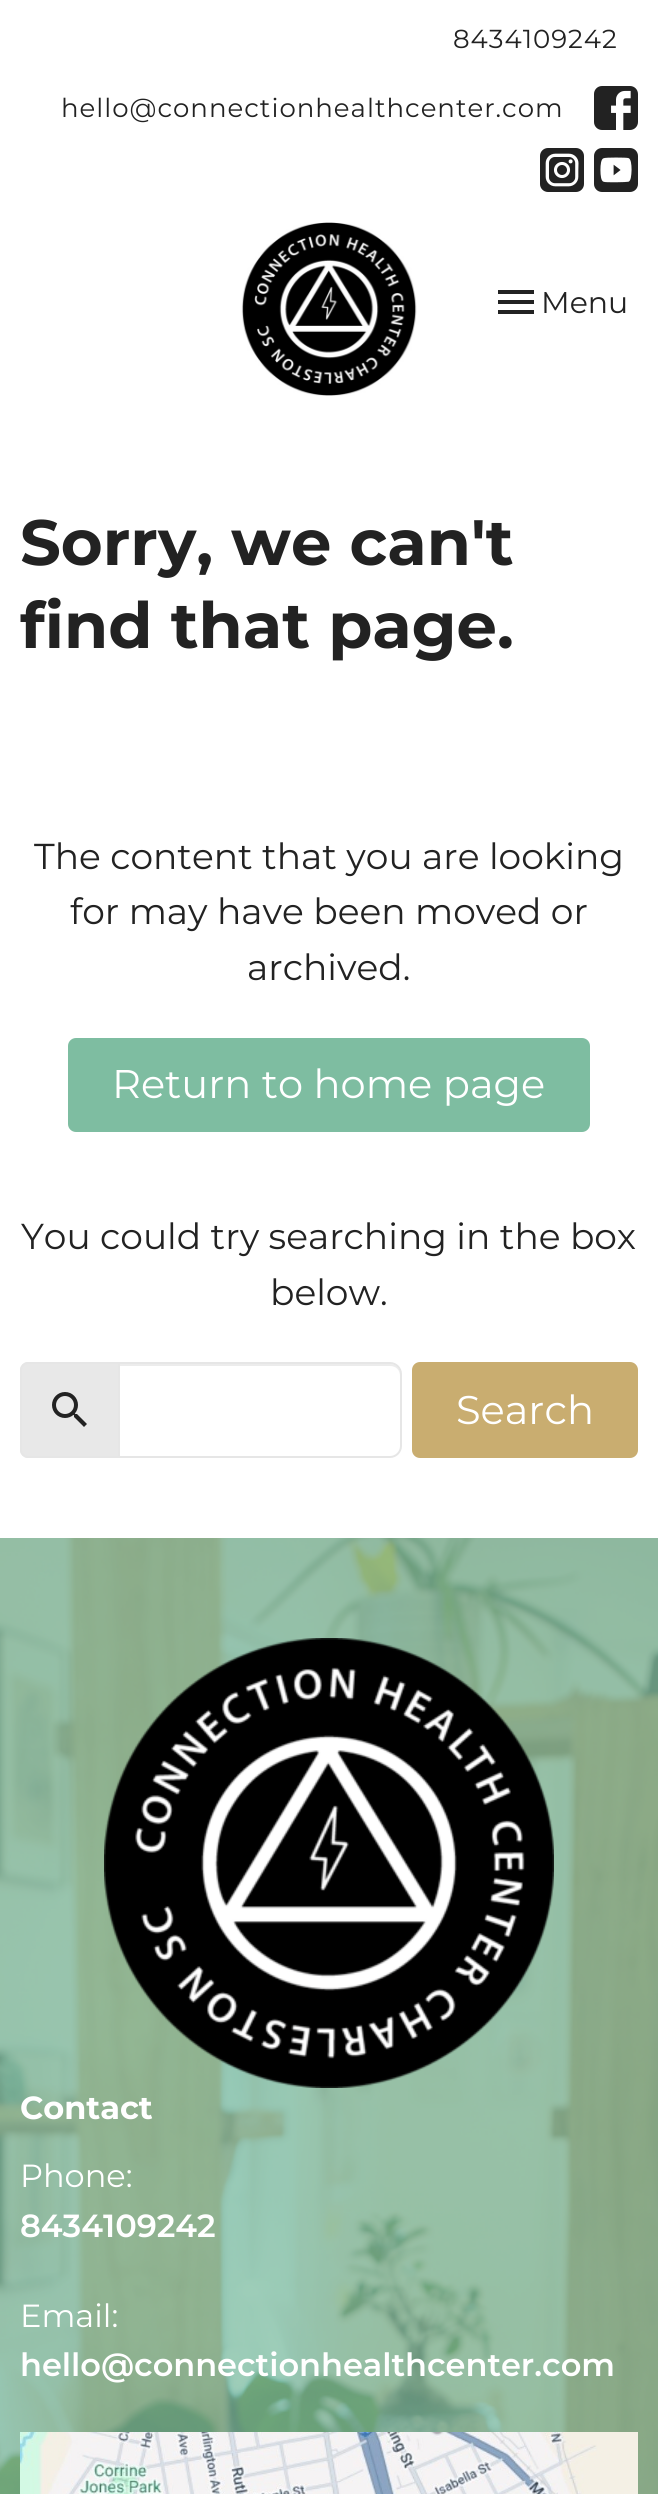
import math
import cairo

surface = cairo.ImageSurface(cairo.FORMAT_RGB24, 658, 2494)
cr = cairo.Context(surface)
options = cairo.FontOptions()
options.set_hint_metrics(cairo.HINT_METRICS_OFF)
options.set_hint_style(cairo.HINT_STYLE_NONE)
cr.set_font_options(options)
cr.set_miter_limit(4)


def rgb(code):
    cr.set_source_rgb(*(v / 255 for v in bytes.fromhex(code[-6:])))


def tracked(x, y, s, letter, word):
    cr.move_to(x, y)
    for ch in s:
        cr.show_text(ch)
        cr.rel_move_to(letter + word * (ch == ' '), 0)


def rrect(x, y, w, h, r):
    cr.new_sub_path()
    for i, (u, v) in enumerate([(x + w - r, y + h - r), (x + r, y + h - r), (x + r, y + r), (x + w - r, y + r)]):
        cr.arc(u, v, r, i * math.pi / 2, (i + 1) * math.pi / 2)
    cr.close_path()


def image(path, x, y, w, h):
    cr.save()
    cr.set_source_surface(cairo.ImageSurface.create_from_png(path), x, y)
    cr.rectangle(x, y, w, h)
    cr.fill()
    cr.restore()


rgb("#ffffff")
cr.paint()
image("img/1.png", 594, 86, 44, 44)
image("img/2.png", 540, 148, 44, 44)
image("img/3.png", 594, 148, 44, 44)
image("img/4.png", 241, 222, 176, 174)
rgb("#222222")
cr.new_path()
cr.move_to(498, 314)
cr.line_to(534, 314)
cr.line_to(534, 310)
cr.line_to(498, 310)
cr.close_path()
cr.move_to(498, 304)
cr.line_to(534, 304)
cr.line_to(534, 300)
cr.line_to(498, 300)
cr.close_path()
cr.move_to(498, 290)
cr.line_to(498, 294)
cr.line_to(534, 294)
cr.line_to(534, 290)
cr.close_path()
cr.fill()
rgb("#7ebda1")
rrect(68, 1038, 522, 94, 8)
cr.fill()
rgb("#e8e8e8")
cr.new_path()
cr.move_to(28, 1362)
cr.line_to(118, 1362)
cr.line_to(118, 1458)
cr.line_to(28, 1458)
cr.curve_to(23.5, 1458, 20, 1454.5, 20, 1450)
cr.line_to(20, 1370)
cr.curve_to(20, 1365.5, 23.5, 1362, 28, 1362)
cr.close_path()
cr.fill()
rgb("#e6e6e6")
cr.set_fill_rule(cairo.FILL_RULE_EVEN_ODD)
cr.new_path()
cr.move_to(28, 1362)
cr.line_to(118, 1362)
cr.line_to(118, 1458)
cr.line_to(28, 1458)
cr.curve_to(24, 1458, 20, 1454, 20, 1450)
cr.line_to(20, 1370)
cr.curve_to(20, 1366, 24, 1362, 28, 1362)
cr.close_path()
cr.move_to(28, 1364)
cr.line_to(118, 1364)
cr.line_to(118, 1456)
cr.line_to(28, 1456)
cr.curve_to(25, 1456, 22, 1453, 22, 1450)
cr.line_to(22, 1370)
cr.curve_to(22, 1367, 25, 1364, 28, 1364)
cr.close_path()
cr.fill()
image("img/5.png", 52, 1392, 35, 35)
rgb("#ececec")
cr.set_fill_rule(cairo.FILL_RULE_WINDING)
cr.new_path()
cr.move_to(120, 1366)
cr.line_to(390, 1366)
cr.curve_to(396, 1366, 400, 1370, 400, 1376)
cr.line_to(400, 1374)
cr.curve_to(400, 1368, 396, 1364, 390, 1364)
cr.line_to(120, 1364)
cr.close_path()
cr.fill()
cr.new_path()
cr.move_to(119, 1363)
cr.line_to(390, 1363)
cr.curve_to(396, 1363, 401, 1368, 401, 1374)
cr.line_to(401, 1446)
cr.curve_to(401, 1452, 396, 1457, 390, 1457)
cr.line_to(119, 1457)
cr.close_path()
rgb("#e6e6e6")
cr.stroke()
rgb("#c9ad70")
rrect(412, 1362, 226, 96, 8)
cr.fill()
image("img/6.png", 0, 1538, 658, 956)
image("img/7.png", 104, 1638, 450, 450)
image("img/8.png", 20, 2432, 618, 62)
cr.select_font_face("Montserrat")
cr.set_font_size(26)
rgb("#222222")
tracked(453, 48, "8434109242", 1, 0)
tracked(61, 117, "hello@connectionhealthcenter.com", 1, 0)
cr.set_font_size(30)
cr.move_to(541, 313)
cr.show_text("Menu")
cr.select_font_face("Montserrat", cairo.FONT_SLANT_NORMAL, cairo.FONT_WEIGHT_BOLD)
cr.set_font_size(64)
cr.move_to(20, 565)
cr.show_text("Sorry, we can't")
cr.move_to(20, 648)
cr.show_text("find that page.")
cr.select_font_face("Montserrat")
cr.set_font_size(36)
for x, y, s in [
    (34, 869, "The content that you are looking"),
    (70, 924, "for may have been moved or"),
    (247, 980, "archived."),
]:
    cr.move_to(x, y)
    cr.show_text(s)
cr.set_font_size(40)
rgb("#ffffff")
cr.move_to(112, 1098)
cr.show_text("Return to home page")
cr.set_font_size(36)
rgb("#222222")
cr.move_to(21, 1249)
cr.show_text("You could try searching in the box")
cr.move_to(270, 1305)
cr.show_text("below.")
cr.set_font_size(40)
rgb("#ffffff")
cr.move_to(456, 1424)
cr.show_text("Search")
cr.select_font_face("Montserrat", cairo.FONT_SLANT_NORMAL, cairo.FONT_WEIGHT_BOLD)
cr.set_font_size(32)
cr.move_to(20, 2119)
cr.show_text("Contact")
cr.select_font_face("Montserrat")
cr.move_to(20, 2187)
cr.show_text("Phone:")
cr.select_font_face("Montserrat SemiBold")
cr.move_to(20, 2237)
cr.show_text("8434109242")
cr.select_font_face("Montserrat")
cr.move_to(20, 2327)
cr.show_text("Email:")
cr.select_font_face("Montserrat SemiBold")
cr.move_to(20, 2376)
cr.show_text("hello@connectionhealthcenter.com")
surface.write_to_png("page.png")
